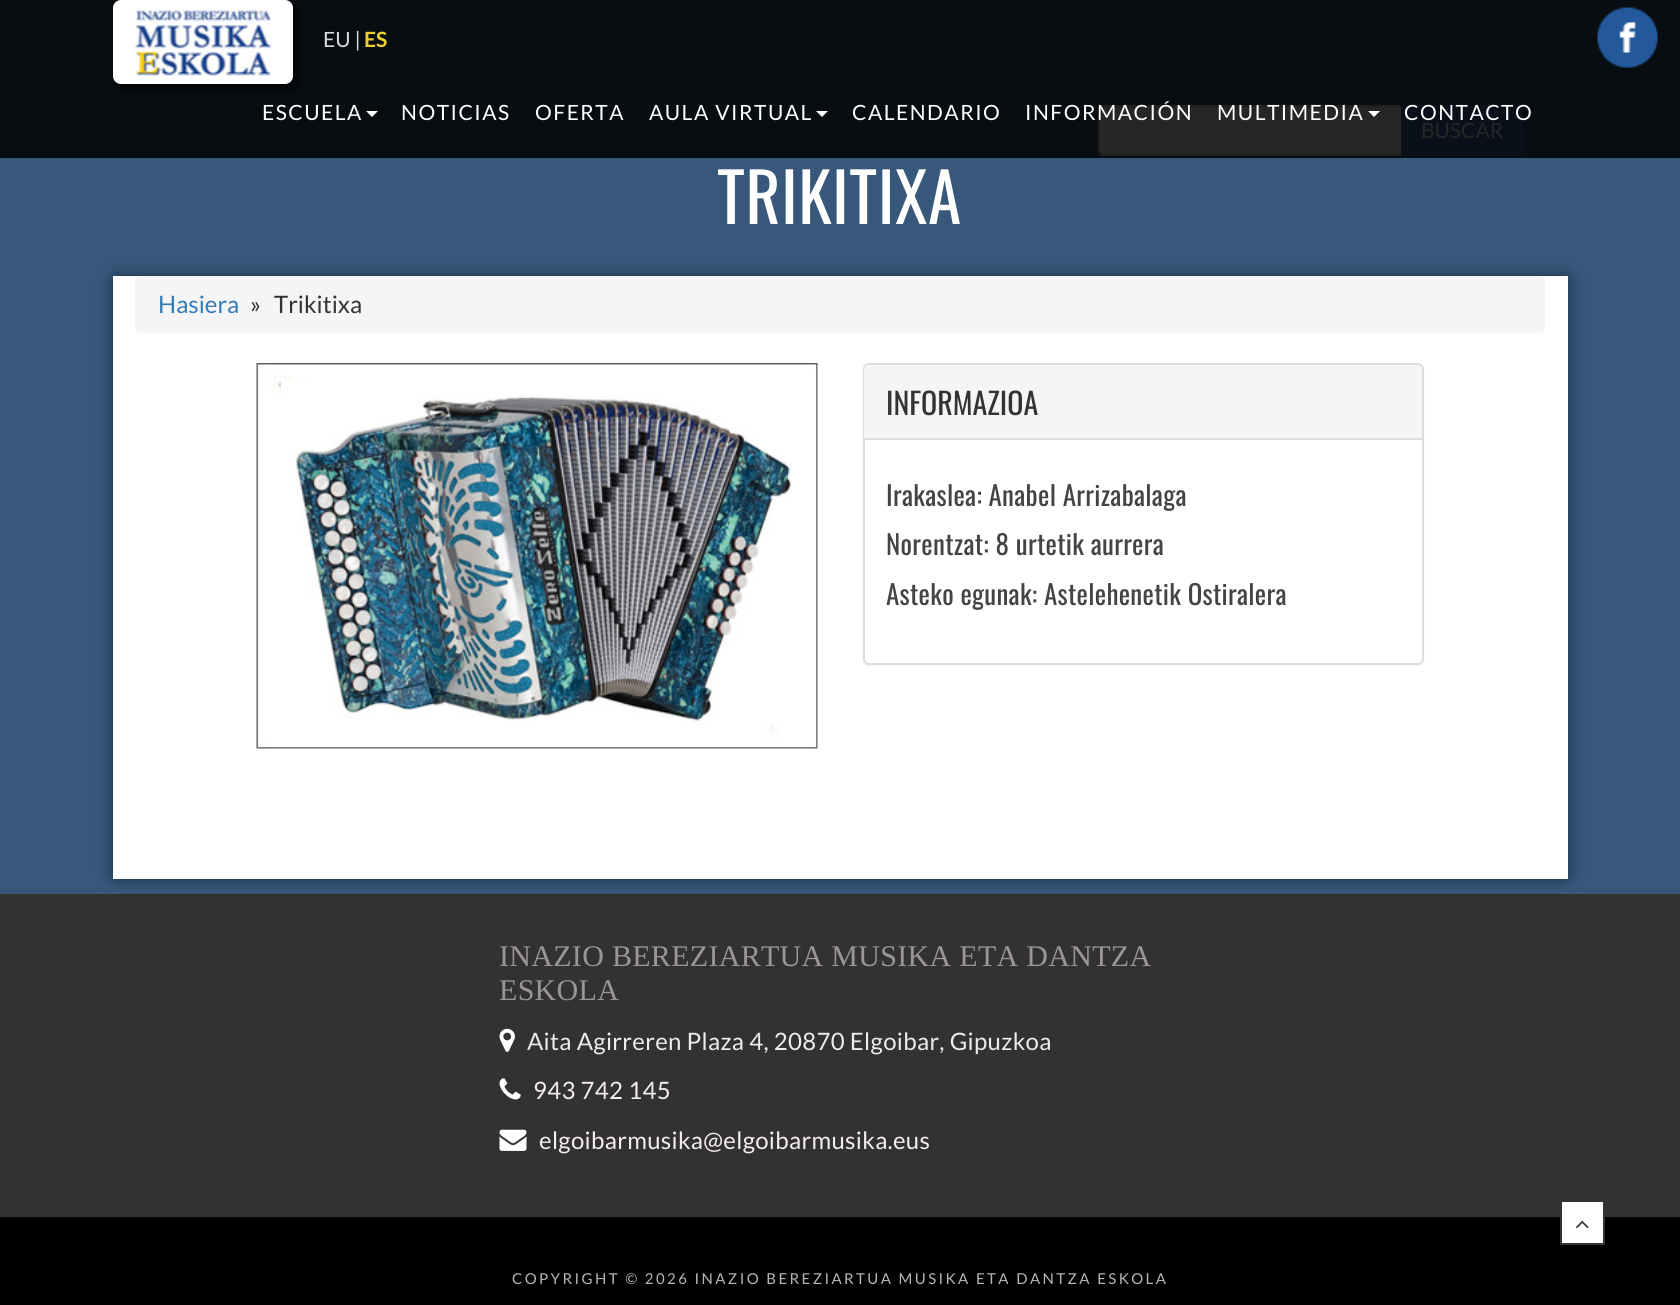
import math
import cairo

surface = cairo.ImageSurface(cairo.FORMAT_RGB24, 1680, 1305)
cr = cairo.Context(surface)
options = cairo.FontOptions()
options.set_hint_metrics(cairo.HINT_METRICS_OFF)
options.set_hint_style(cairo.HINT_STYLE_NONE)
cr.set_font_options(options)
cr.set_miter_limit(4)


def rgb(code):
    cr.set_source_rgb(*(v / 255 for v in bytes.fromhex(code[-6:])))


def tracked(x, y, s, letter, word):
    cr.move_to(x, y)
    for ch in s:
        cr.show_text(ch)
        cr.rel_move_to(letter + word * (ch == ' '), 0)


def rrect(x, y, w, h, r):
    cr.new_sub_path()
    for i, (u, v) in enumerate([(x + w - r, y + h - r), (x + r, y + h - r), (x + r, y + r), (x + w - r, y + r)]):
        cr.arc(u, v, r, i * math.pi / 2, (i + 1) * math.pi / 2)
    cr.close_path()


def soft_shadow(x, y, w, h, r, blur, alpha):
    cr.push_group_with_content(cairo.CONTENT_ALPHA)
    cr.set_operator(cairo.OPERATOR_SOURCE)
    for i in range(15, -16, -2):
        e = blur * i / 6
        if min(w, h) + 2 * e > 0:
            cr.set_source_rgba(0, 0, 0, alpha * math.erfc((i - 1) / 8.5) / 2)
            rrect(x - e, y - e, w + 2 * e, h + 2 * e, max(0, min(r + e + blur * .6, min(w, h) / 2 + e)))
            cr.fill()
    cr.mask(cr.pop_group())


def image(path, x, y, w, h):
    cr.save()
    cr.set_source_surface(cairo.ImageSurface.create_from_png(path), x, y)
    cr.rectangle(x, y, w, h)
    cr.fill()
    cr.restore()


rgb("#37587b")
cr.paint()
rgb("#080d12")
cr.rectangle(0, 0, 1680, 158)
cr.fill()
rgb("#000000")
soft_shadow(114, 2, 183, 87, 9, 4, 0.75)
rgb("#ffffff")
rrect(113, 0, 180, 84, 8)
cr.fill()
image("img/1.png", 133, 9, 139, 67)
cr.new_path()
cr.move_to(366, 111)
cr.line_to(378, 111)
cr.line_to(372, 117)
cr.close_path()
cr.fill()
cr.new_path()
cr.move_to(816, 111)
cr.line_to(828, 111)
cr.line_to(822, 117)
cr.close_path()
cr.fill()
rgb("#262626")
cr.new_path()
cr.move_to(1104, 105)
cr.line_to(1403, 105)
cr.line_to(1403, 156)
cr.line_to(1104, 156)
cr.curve_to(1100.5, 156, 1098, 153.5, 1098, 150)
cr.line_to(1098, 111)
cr.curve_to(1098, 107.5, 1100.5, 105, 1104, 105)
cr.close_path()
cr.fill()
rgb("#232323")
cr.new_path()
cr.move_to(1104, 108)
cr.line_to(1401, 108)
cr.line_to(1401, 107)
cr.line_to(1105, 107)
cr.curve_to(1102, 107, 1100, 109, 1100, 112)
cr.curve_to(1100, 110, 1102, 108, 1104, 108)
cr.close_path()
cr.fill()
cr.new_path()
cr.move_to(1104, 106)
cr.line_to(1402, 106)
cr.line_to(1402, 155)
cr.line_to(1104, 155)
cr.curve_to(1101, 155, 1099, 153, 1099, 150)
cr.line_to(1099, 111)
cr.curve_to(1099, 108, 1101, 106, 1104, 106)
cr.close_path()
rgb("#1f1f1f")
cr.stroke()
rgb("#ffffff")
cr.new_path()
cr.move_to(1368, 111)
cr.line_to(1380, 111)
cr.line_to(1374, 117)
cr.close_path()
cr.fill()
image("img/2.png", 1597, 7, 61, 61)
rgb("#091019")
cr.new_path()
cr.move_to(1401, 105)
cr.line_to(1518, 105)
cr.curve_to(1521, 105, 1523, 107, 1523, 110)
cr.line_to(1523, 151)
cr.curve_to(1523, 154, 1521, 156, 1518, 156)
cr.line_to(1401, 156)
cr.close_path()
cr.fill()
rgb("#082136")
soft_shadow(116, 279, 1449, 597, 0, 9, 1)
rgb("#ffffff")
cr.rectangle(113, 276, 1455, 603)
cr.fill()
rgb("#f5f5f5")
rrect(135, 276, 1410, 57, 6)
cr.fill()
image("img/3.png", 256, 363, 562, 386)
rgb("#000000")
soft_shadow(863, 365, 561, 301, 6, 1, 0.05)
rgb("#ffffff")
rrect(864, 364, 559, 300, 5)
cr.fill_preserve()
rgb("#dddddd")
cr.stroke()
rgb("#f5f5f5")
cr.new_path()
cr.move_to(869, 365)
cr.line_to(1417, 365)
cr.curve_to(1420, 365, 1422, 367, 1422, 370)
cr.line_to(1422, 440)
cr.line_to(864, 440)
cr.line_to(864, 370)
cr.curve_to(864, 367, 866, 365, 869, 365)
cr.close_path()
cr.fill()
rgb("#dddddd")
cr.rectangle(864, 438, 558, 2)
cr.fill()
rgb("#333231")
cr.rectangle(0, 894, 1680, 323)
cr.fill()
image("img/4.png", 499, 1028, 16, 24)
image("img/5.png", 499, 1078, 22, 22)
image("img/6.png", 499, 1129, 28, 22)
rgb("#000000")
cr.rectangle(0, 1217, 1680, 88)
cr.fill()
rgb("#ffffff")
cr.rectangle(1561, 1201, 43, 43)
cr.fill_preserve()
rgb("#333333")
cr.stroke()
image("img/7.png", 1576, 1220, 13, 9)
cr.select_font_face("Lato")
cr.set_font_size(21)
rgb("#dbdada")
cr.move_to(323, 47)
cr.show_text("EU |")
cr.select_font_face("Lato", cairo.FONT_SLANT_NORMAL, cairo.FONT_WEIGHT_BOLD)
rgb("#edce31")
cr.move_to(364, 47)
cr.show_text("ES")
cr.select_font_face("Lato")
rgb("#ffffff")
for x, y, s in [
    (262, 120, "ESCUELA"),
    (401, 120, "NOTICIAS"),
    (535, 120, "OFERTA"),
    (649, 120, "AULA VIRTUAL"),
    (852, 120, "CALENDARIO"),
    (1025, 120, "INFORMACIÓN"),
    (1217, 120, "MULTIMEDIA"),
    (1404, 120, "CONTACTO"),
]:
    tracked(x, y, s, 1.5, 0)
rgb("#262626")
cr.move_to(1421, 138)
cr.show_text("BUSCAR")
cr.select_font_face("Oswald")
cr.set_font_size(67.5)
rgb("#ffffff")
tracked(717, 224, "TRIKITIXA", 0.5, 0)
cr.select_font_face("Lato")
cr.set_font_size(24)
rgb("#337ab7")
cr.move_to(158, 313)
cr.show_text("Hasiera")
rgb("#333333")
cr.move_to(250, 313)
cr.show_text("»")
cr.move_to(274, 313)
cr.show_text("Trikitixa")
cr.select_font_face("Oswald")
cr.set_font_size(30)
cr.move_to(886, 415)
cr.show_text("INFORMAZIOA")
cr.set_font_size(27)
rgb("#454343")
for x, y, s in [
    (886, 506, "Irakaslea: Anabel Arrizabalaga"),
    (886, 555, "Norentzat: 8 urtetik aurrera"),
    (886, 605, "Asteko egunak: Astelehenetik Ostiralera"),
]:
    tracked(x, y, s, 0.3, 0)
cr.select_font_face("Liberation Serif")
cr.set_font_size(30)
rgb("#9a9697")
tracked(499, 966, "INAZIO BEREZIARTUA MUSIKA ETA DANTZA", 0.3, 0)
tracked(499, 1000, "ESKOLA", 0.3, 0)
cr.select_font_face("Lato")
cr.set_font_size(24)
rgb("#edebeb")
tracked(527, 1050, "Aita Agirreren Plaza 4, 20870 Elgoibar, Gipuzkoa", 0.3, 0)
rgb("#f3eeee")
tracked(533, 1099, "943 742 145", 0.3, 0)
tracked(539, 1149, "elgoibarmusika@elgoibarmusika.eus", 0.3, 0)
cr.set_font_size(15)
rgb("#b7b7b7")
tracked(512, 1284, "COPYRIGHT © 2026 INAZIO BEREZIARTUA MUSIKA ETA DANTZA ESKOLA", 2.4, 0)
surface.write_to_png("page.png")
